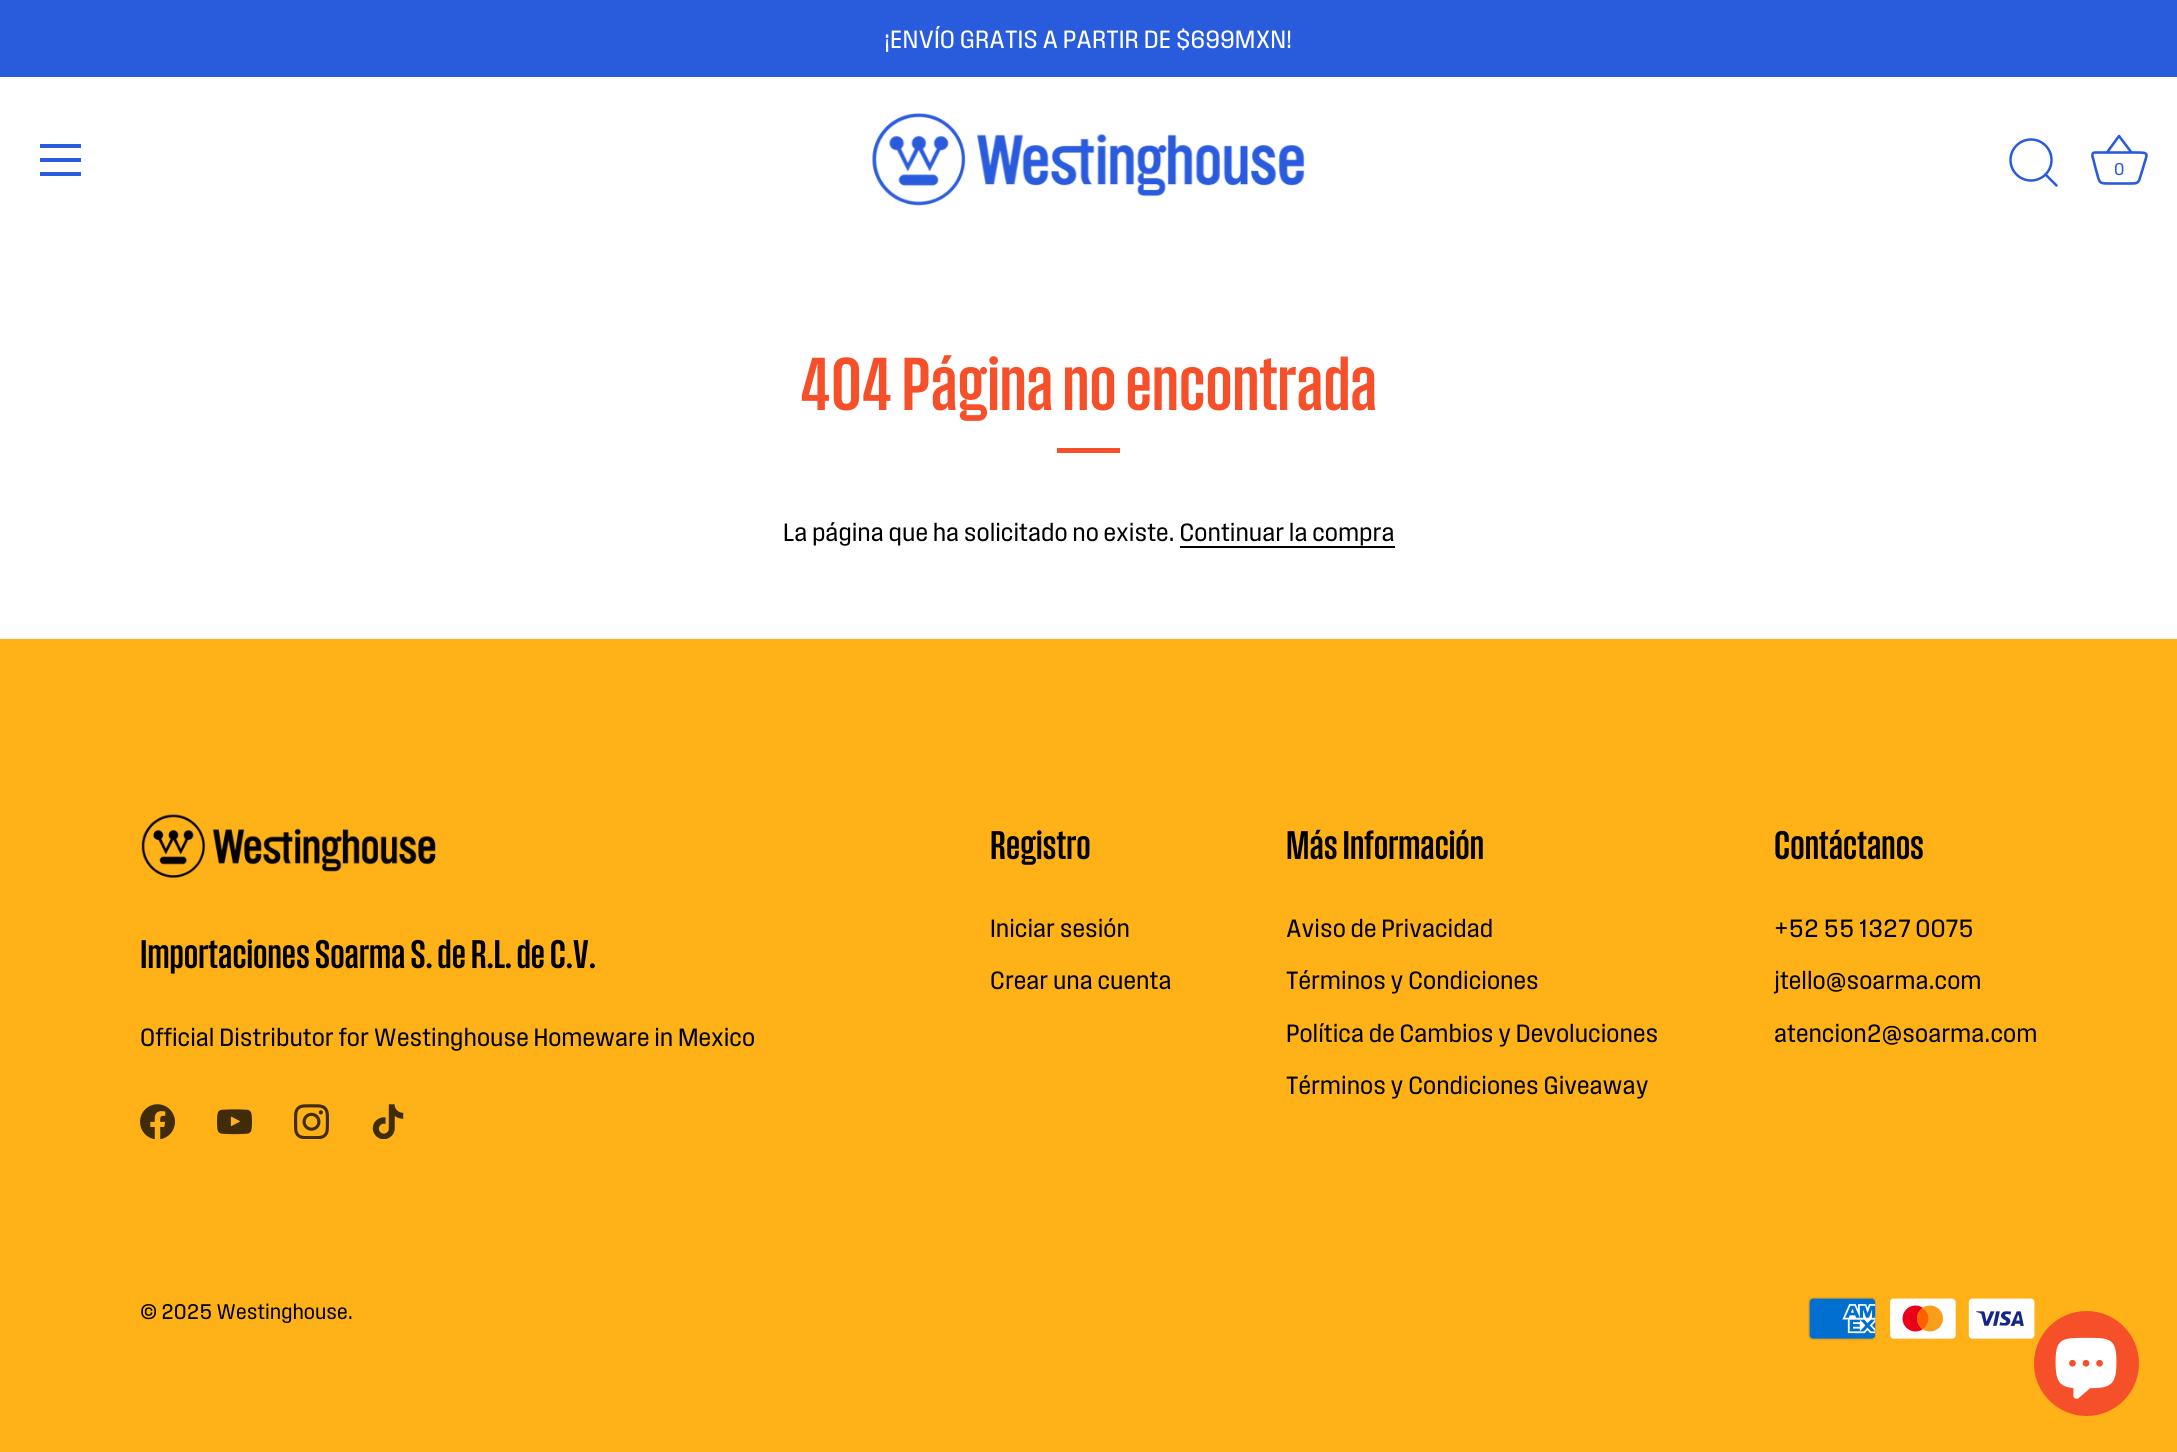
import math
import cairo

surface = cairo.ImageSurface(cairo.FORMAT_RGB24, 2177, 1452)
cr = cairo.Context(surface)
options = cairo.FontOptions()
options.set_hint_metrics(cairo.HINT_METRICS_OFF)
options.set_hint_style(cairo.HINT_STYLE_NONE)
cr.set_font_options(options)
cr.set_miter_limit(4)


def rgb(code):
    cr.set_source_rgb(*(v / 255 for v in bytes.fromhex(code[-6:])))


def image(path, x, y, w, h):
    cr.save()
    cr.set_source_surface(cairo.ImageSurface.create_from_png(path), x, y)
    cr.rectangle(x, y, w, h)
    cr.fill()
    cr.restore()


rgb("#ffffff")
cr.paint()
for x, y, w, h, color in [
    (0, 0, 2177, 77, "#295bdd"),
    (40, 144, 41, 4, "#295bdd"),
    (40, 158, 41, 4, "#295bdd"),
    (40, 172, 41, 4, "#295bdd"),
]:
    rgb(color)
    cr.rectangle(x, y, w, h)
    cr.fill()
image("img/1.png", 872, 113, 433, 93)
cr.arc(2031, 160, 20.5, 0, 2 * math.pi)
cr.set_line_width(2.5)
cr.stroke()
cr.new_path()
cr.move_to(2056.5, 185.5)
cr.line_to(2045.5, 174.5)
cr.set_line_cap(cairo.LINE_CAP_ROUND)
cr.set_line_join(cairo.LINE_JOIN_ROUND)
cr.stroke()
cr.new_path()
cr.move_to(2095, 152.5)
cr.curve_to(2090.5, 152.5, 2093, 158, 2093.5, 160)
cr.line_to(2095.5, 168)
cr.curve_to(2100.5, 184.5, 2097, 183.5, 2114, 183.5)
cr.line_to(2129.5, 183.5)
cr.curve_to(2137.5, 183.5, 2138.5, 183.5, 2140.5, 176)
cr.line_to(2143, 168)
cr.curve_to(2147, 153, 2150.5, 152.5, 2135.5, 152.5)
cr.line_to(2095, 152.5)
cr.move_to(2107, 152.5)
cr.line_to(2119, 136)
cr.line_to(2131.5, 152.5)
cr.set_line_width(2.6)
cr.set_line_cap(cairo.LINE_CAP_BUTT)
cr.stroke()
for x, y, w, h, color in [
    (1057, 448, 63, 5, "#f6502b"),
    (1180, 546, 215, 2, "#000000"),
    (0, 639, 2177, 813, "#ffb118"),
]:
    rgb(color)
    cr.rectangle(x, y, w, h)
    cr.fill()
image("img/2.png", 141, 814, 295, 64)
image("img/3.png", 140, 1104, 35, 35)
image("img/4.png", 217, 1109, 35, 26)
image("img/5.png", 294, 1104, 35, 35)
image("img/6.png", 372, 1104, 32, 35)
image("img/7.png", 1808, 1297, 68, 44)
image("img/8.png", 1890, 1298, 66, 41)
image("img/9.png", 1968, 1298, 67, 41)
rgb("#f6502b")
cr.arc(2086.5, 1363.5, 52.5, 0, 2 * math.pi)
cr.fill()
image("img/10.png", 2055, 1337, 62, 62)
cr.select_font_face("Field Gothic")
cr.set_font_size(26.25)
rgb("#ffffff")
cr.move_to(884, 48)
cr.show_text("¡ENVÍO GRATIS A PARTIR DE $699MXN!")
cr.set_font_size(18)
rgb("#295bdd")
cr.move_to(2114, 175)
cr.show_text("0")
cr.select_font_face("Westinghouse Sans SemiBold")
cr.set_font_size(78.75)
rgb("#f6502b")
cr.move_to(800, 410)
cr.show_text("404 Página no encontrada")
cr.select_font_face("Field Gothic")
cr.set_font_size(26.25)
rgb("#000000")
cr.move_to(783, 541)
cr.show_text("La página que ha solicitado no existe. Continuar la compra")
cr.select_font_face("Westinghouse Sans SemiBold")
cr.set_font_size(42)
cr.move_to(140, 968)
cr.show_text("Importaciones Soarma S. de R.L. de C.V.")
cr.select_font_face("Field Gothic")
cr.set_font_size(26.25)
cr.move_to(140, 1046)
cr.show_text("Official Distributor for Westinghouse Homeware in Mexico")
cr.select_font_face("Westinghouse Sans SemiBold")
cr.set_font_size(42)
cr.move_to(990, 859)
cr.show_text("Registro")
cr.select_font_face("Field Gothic")
cr.set_font_size(26.25)
cr.move_to(990, 937)
cr.show_text("Iniciar sesión")
cr.move_to(990, 989)
cr.show_text("Crear una cuenta")
cr.select_font_face("Westinghouse Sans SemiBold")
cr.set_font_size(42)
cr.move_to(1286, 859)
cr.show_text("Más Información")
cr.select_font_face("Field Gothic")
cr.set_font_size(26.25)
for x, y, s in [
    (1286, 937, "Aviso de Privacidad"),
    (1286, 989, "Términos y Condiciones"),
    (1286, 1042, "Política de Cambios y Devoluciones"),
    (1286, 1094, "Términos y Condiciones Giveaway"),
]:
    cr.move_to(x, y)
    cr.show_text(s)
cr.select_font_face("Westinghouse Sans SemiBold")
cr.set_font_size(42)
cr.move_to(1774, 859)
cr.show_text("Contáctanos")
cr.select_font_face("Field Gothic")
cr.set_font_size(26.25)
for x, y, s in [
    (1774, 937, "+52 55 1327 0075"),
    (1774, 989, "jtello@soarma.com"),
    (1774, 1042, "atencion2@soarma.com"),
]:
    cr.move_to(x, y)
    cr.show_text(s)
cr.set_font_size(22.25)
cr.move_to(140, 1319)
cr.show_text("© 2025 Westinghouse.")
surface.write_to_png("page.png")
